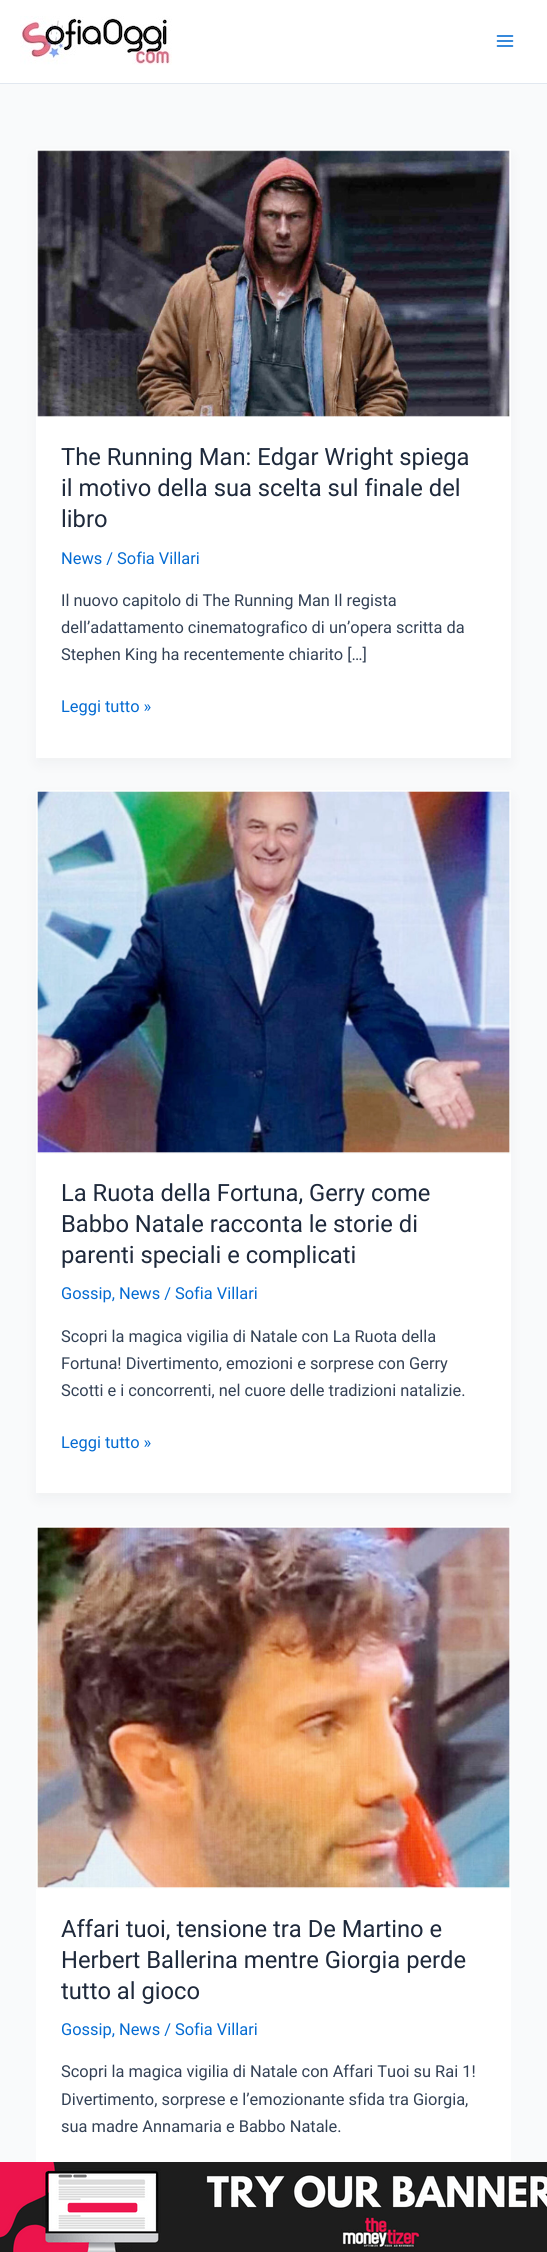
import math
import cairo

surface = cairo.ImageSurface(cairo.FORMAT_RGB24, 547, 2252)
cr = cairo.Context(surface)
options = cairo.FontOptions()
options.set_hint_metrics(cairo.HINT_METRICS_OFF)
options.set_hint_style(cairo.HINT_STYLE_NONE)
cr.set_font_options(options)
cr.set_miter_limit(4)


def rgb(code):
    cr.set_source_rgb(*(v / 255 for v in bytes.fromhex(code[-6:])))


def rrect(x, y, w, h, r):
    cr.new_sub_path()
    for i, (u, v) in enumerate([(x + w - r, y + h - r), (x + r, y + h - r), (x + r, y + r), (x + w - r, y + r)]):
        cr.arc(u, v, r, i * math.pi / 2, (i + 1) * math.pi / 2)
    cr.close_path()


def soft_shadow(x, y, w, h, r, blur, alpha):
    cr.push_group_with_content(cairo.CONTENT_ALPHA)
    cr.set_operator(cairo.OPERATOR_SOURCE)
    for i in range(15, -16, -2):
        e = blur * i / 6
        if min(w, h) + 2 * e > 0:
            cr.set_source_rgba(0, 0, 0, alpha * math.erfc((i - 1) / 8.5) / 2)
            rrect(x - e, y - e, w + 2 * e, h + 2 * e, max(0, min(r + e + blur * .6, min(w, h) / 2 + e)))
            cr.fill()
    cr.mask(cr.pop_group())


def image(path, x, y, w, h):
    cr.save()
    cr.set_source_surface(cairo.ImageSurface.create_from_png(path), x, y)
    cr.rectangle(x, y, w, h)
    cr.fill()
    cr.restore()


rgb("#f9fafb")
cr.paint()
rgb("#ffffff")
cr.rectangle(0, 0, 547, 83)
cr.fill()
rgb("#e2e8f0")
cr.rectangle(0, 83, 547, 1)
cr.fill()
image("img/1.png", 20, 16, 152, 49)
image("img/2.png", 496, 35, 18, 12)
rgb("#101828")
soft_shadow(38, 157, 471, 605, 0, 7.5, 0.05)
rgb("#ffffff")
cr.rectangle(36, 149, 475, 609)
cr.fill()
image("img/3.png", 37, 150, 473, 267)
rgb("#101828")
soft_shadow(38, 798, 471, 699, 0, 7.5, 0.05)
rgb("#ffffff")
cr.rectangle(36, 1154, 475, 339)
cr.fill()
image("img/4.png", 36, 790, 475, 364)
cr.rectangle(36, 1889, 475, 273)
cr.fill()
image("img/5.png", 36, 1526, 475, 363)
image("img/6.png", 0, 2162, 547, 90)
cr.select_font_face("Roboto")
cr.set_font_size(23.75)
rgb("#1e293b")
for x, y, s in [
    (61, 465, "The Running Man: Edgar Wright spiega"),
    (61, 496, "il motivo della sua scelta sul finale del"),
    (61, 527, "libro"),
]:
    cr.move_to(x, y)
    cr.show_text(s)
cr.set_font_size(16.4)
rgb("#046bd2")
cr.move_to(61, 564)
cr.show_text("News / Sofia Villari")
rgb("#334155")
for x, y, s in [
    (61, 606, "Il nuovo capitolo di The Running Man Il regista"),
    (61, 633, "dell’adattamento cinematografico di un’opera scritta da"),
    (61, 660, "Stephen King ha recentemente chiarito […]"),
]:
    cr.move_to(x, y)
    cr.show_text(s)
rgb("#046bd2")
cr.move_to(61, 712)
cr.show_text("Leggi tutto »")
cr.set_font_size(23.75)
rgb("#1e293b")
for x, y, s in [
    (61, 1201, "La Ruota della Fortuna, Gerry come"),
    (61, 1232, "Babbo Natale racconta le storie di"),
    (61, 1263, "parenti speciali e complicati"),
]:
    cr.move_to(x, y)
    cr.show_text(s)
cr.set_font_size(16.4)
rgb("#046bd2")
cr.move_to(61, 1299)
cr.show_text("Gossip, News / Sofia Villari")
rgb("#334155")
for x, y, s in [
    (61, 1342, "Scopri la magica vigilia di Natale con La Ruota della"),
    (61, 1369, "Fortuna! Divertimento, emozioni e sorprese con Gerry"),
    (61, 1396, "Scotti e i concorrenti, nel cuore delle tradizioni natalizie."),
]:
    cr.move_to(x, y)
    cr.show_text(s)
rgb("#046bd2")
cr.move_to(61, 1448)
cr.show_text("Leggi tutto »")
cr.set_font_size(23.75)
rgb("#1e293b")
for x, y, s in [
    (61, 1937, "Affari tuoi, tensione tra De Martino e"),
    (61, 1968, "Herbert Ballerina mentre Giorgia perde"),
    (61, 1999, "tutto al gioco"),
]:
    cr.move_to(x, y)
    cr.show_text(s)
cr.set_font_size(16.4)
rgb("#046bd2")
cr.move_to(61, 2035)
cr.show_text("Gossip, News / Sofia Villari")
rgb("#334155")
for x, y, s in [
    (61, 2077, "Scopri la magica vigilia di Natale con Affari Tuoi su Rai 1!"),
    (61, 2105, "Divertimento, sorprese e l’emozionante sfida tra Giorgia,"),
    (61, 2132, "sua madre Annamaria e Babbo Natale."),
]:
    cr.move_to(x, y)
    cr.show_text(s)
surface.write_to_png("page.png")
